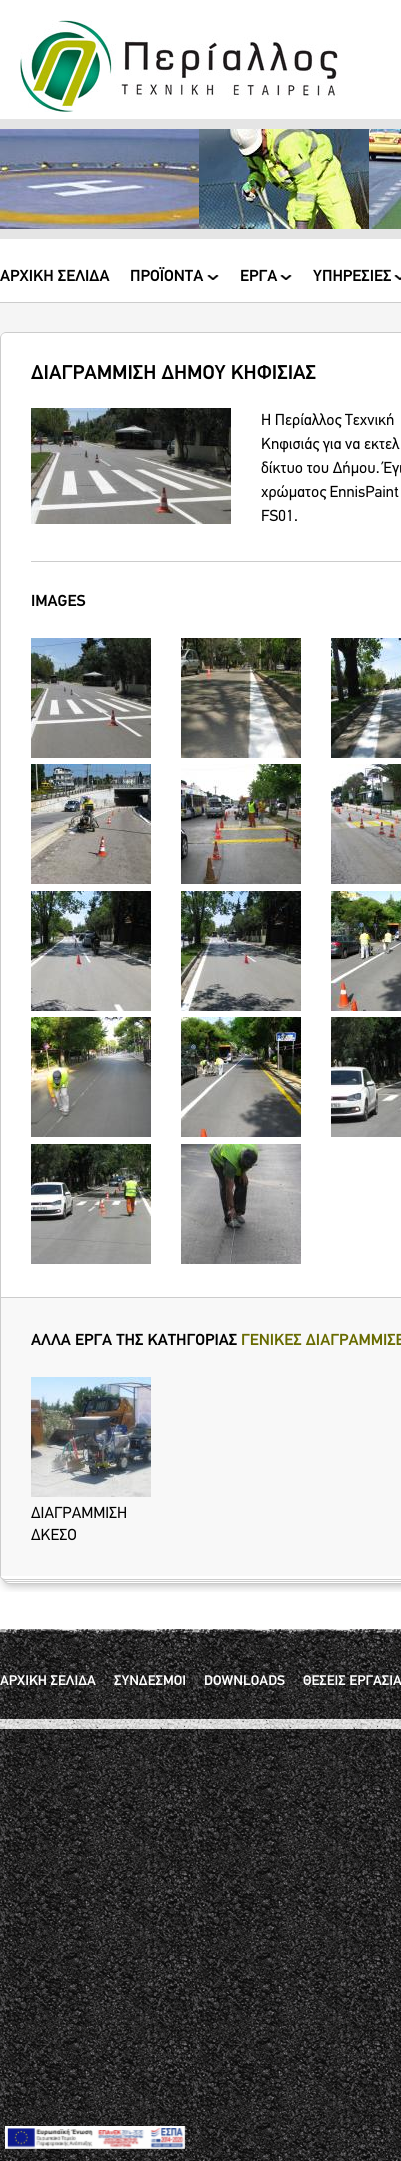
import math
import cairo

surface = cairo.ImageSurface(cairo.FORMAT_RGB24, 401, 2161)
cr = cairo.Context(surface)
options = cairo.FontOptions()
options.set_hint_metrics(cairo.HINT_METRICS_OFF)
options.set_hint_style(cairo.HINT_STYLE_NONE)
cr.set_font_options(options)
cr.set_miter_limit(4)


def rgb(code):
    cr.set_source_rgb(*(v / 255 for v in bytes.fromhex(code[-6:])))


def image(path, x, y, w, h):
    cr.save()
    cr.set_source_surface(cairo.ImageSurface.create_from_png(path), x, y)
    cr.rectangle(x, y, w, h)
    cr.fill()
    cr.restore()


rgb("#ffffff")
cr.paint()
image("img/1.png", 0, 1749, 401, 412)
image("img/2.png", 20, 20, 318, 92)
rgb("#e5e5e5")
cr.rectangle(0, 119, 401, 120)
cr.fill()
image("img/3.png", 0, 129, 199, 100)
image("img/4.png", 199, 129, 170, 100)
image("img/5.png", 369, 129, 32, 100)
image("img/6.png", 207, 275, 12, 5)
image("img/6.png", 280, 275, 12, 5)
image("img/7.png", 394, 275, 7, 5)
rgb("#f5f5f5")
cr.rectangle(0, 303, 401, 35)
cr.fill()
rgb("#cccccc")
cr.rectangle(0, 302, 401, 1)
cr.fill()
image("img/8.png", 0, 1576, 401, 16)
rgb("#ffffff")
cr.new_path()
cr.move_to(6, 332)
cr.line_to(401, 332)
cr.curve_to(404.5, 332, 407, 334.5, 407, 338)
cr.line_to(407, 1576)
cr.line_to(0, 1576)
cr.line_to(0, 338)
cr.curve_to(0, 334.5, 2.5, 332, 6, 332)
cr.close_path()
cr.fill()
rgb("#cccccc")
cr.set_fill_rule(cairo.FILL_RULE_EVEN_ODD)
cr.new_path()
cr.move_to(6, 332)
cr.line_to(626, 332)
cr.curve_to(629, 332, 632, 335, 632, 338)
cr.line_to(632, 1576)
cr.line_to(0, 1576)
cr.line_to(0, 338)
cr.curve_to(0, 335, 3, 332, 6, 332)
cr.close_path()
cr.move_to(6, 333)
cr.line_to(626, 333)
cr.curve_to(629, 333, 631, 335, 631, 338)
cr.line_to(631, 1576)
cr.line_to(1, 1576)
cr.line_to(1, 338)
cr.curve_to(1, 335, 3, 333, 6, 333)
cr.close_path()
cr.fill()
image("img/9.png", 31, 408, 200, 116)
cr.rectangle(31, 561, 370, 1)
cr.fill()
image("img/10.png", 31, 638, 120, 120)
image("img/11.png", 181, 638, 120, 120)
image("img/12.png", 331, 638, 70, 120)
image("img/13.png", 31, 764, 120, 120)
image("img/14.png", 181, 764, 120, 120)
image("img/15.png", 331, 764, 70, 120)
image("img/16.png", 31, 891, 120, 120)
image("img/17.png", 181, 891, 120, 120)
image("img/18.png", 331, 891, 70, 120)
image("img/19.png", 31, 1017, 120, 120)
image("img/20.png", 181, 1017, 120, 120)
image("img/21.png", 331, 1017, 70, 120)
image("img/22.png", 31, 1144, 120, 120)
image("img/23.png", 181, 1144, 120, 120)
rgb("#f8f8f8")
cr.rectangle(1, 1298, 400, 278)
cr.fill()
rgb("#cccccc")
cr.rectangle(1, 1297, 400, 1)
cr.fill()
image("img/24.png", 31, 1377, 120, 120)
image("img/25.png", 0, 1629, 401, 120)
image("img/26.png", 5, 2126, 180, 23)
cr.select_font_face("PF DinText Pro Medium")
cr.set_font_size(16)
rgb("#000000")
for x, y, s in [
    (0, 281, "ΑΡΧΙΚΗ ΣΕΛΙΔΑ"),
    (130, 281, "ΠΡΟΪΟΝΤΑ"),
    (240, 281, "ΕΡΓΑ"),
    (313, 281, "ΥΠΗΡΕΣΙΕΣ"),
]:
    cr.move_to(x, y)
    cr.show_text(s)
cr.set_font_size(20)
cr.move_to(31, 379)
cr.show_text("ΔΙΑΓΡΑΜΜΙΣΗ ΔΗΜΟΥ ΚΗΦΙΣΙΑΣ")
cr.select_font_face("PF DinText Pro")
cr.set_font_size(16)
for x, y, s in [
    (261, 425, "Η Περίαλλος Τεχνική"),
    (261, 449, "Κηφισιάς για να εκτελ"),
    (261, 473, "δίκτυο του Δήμου. Έγι"),
    (261, 497, "χρώματος EnnisPaint"),
    (261, 521, "FS01."),
]:
    cr.move_to(x, y)
    cr.show_text(s)
cr.select_font_face("PF DinText Pro Medium")
cr.move_to(31, 606)
cr.show_text("IMAGES")
cr.move_to(31, 1345)
cr.show_text("ΑΛΛΑ ΕΡΓΑ ΤΗΣ ΚΑΤΗΓΟΡΙΑΣ")
rgb("#686b00")
cr.move_to(241, 1345)
cr.show_text("ΓΕΝΙΚΕΣ ΔΙΑΓΡΑΜΜΙΣΕ")
cr.select_font_face("PF DinText Pro")
rgb("#000000")
cr.move_to(31, 1518)
cr.show_text("ΔΙΑΓΡΑΜΜΙΣΗ")
cr.move_to(31, 1540)
cr.show_text("ΔΚΕΣΟ")
cr.select_font_face("PF DinText Pro Medium")
cr.set_font_size(14)
rgb("#ffffff")
for x, y, s in [
    (0, 1685, "ΑΡΧΙΚΗ ΣΕΛΙΔΑ"),
    (114, 1685, "ΣΥΝΔΕΣΜΟΙ"),
    (204, 1685, "DOWNLOADS"),
    (303, 1685, "ΘΕΣΕΙΣ ΕΡΓΑΣΙΑ"),
]:
    cr.move_to(x, y)
    cr.show_text(s)
surface.write_to_png("page.png")
